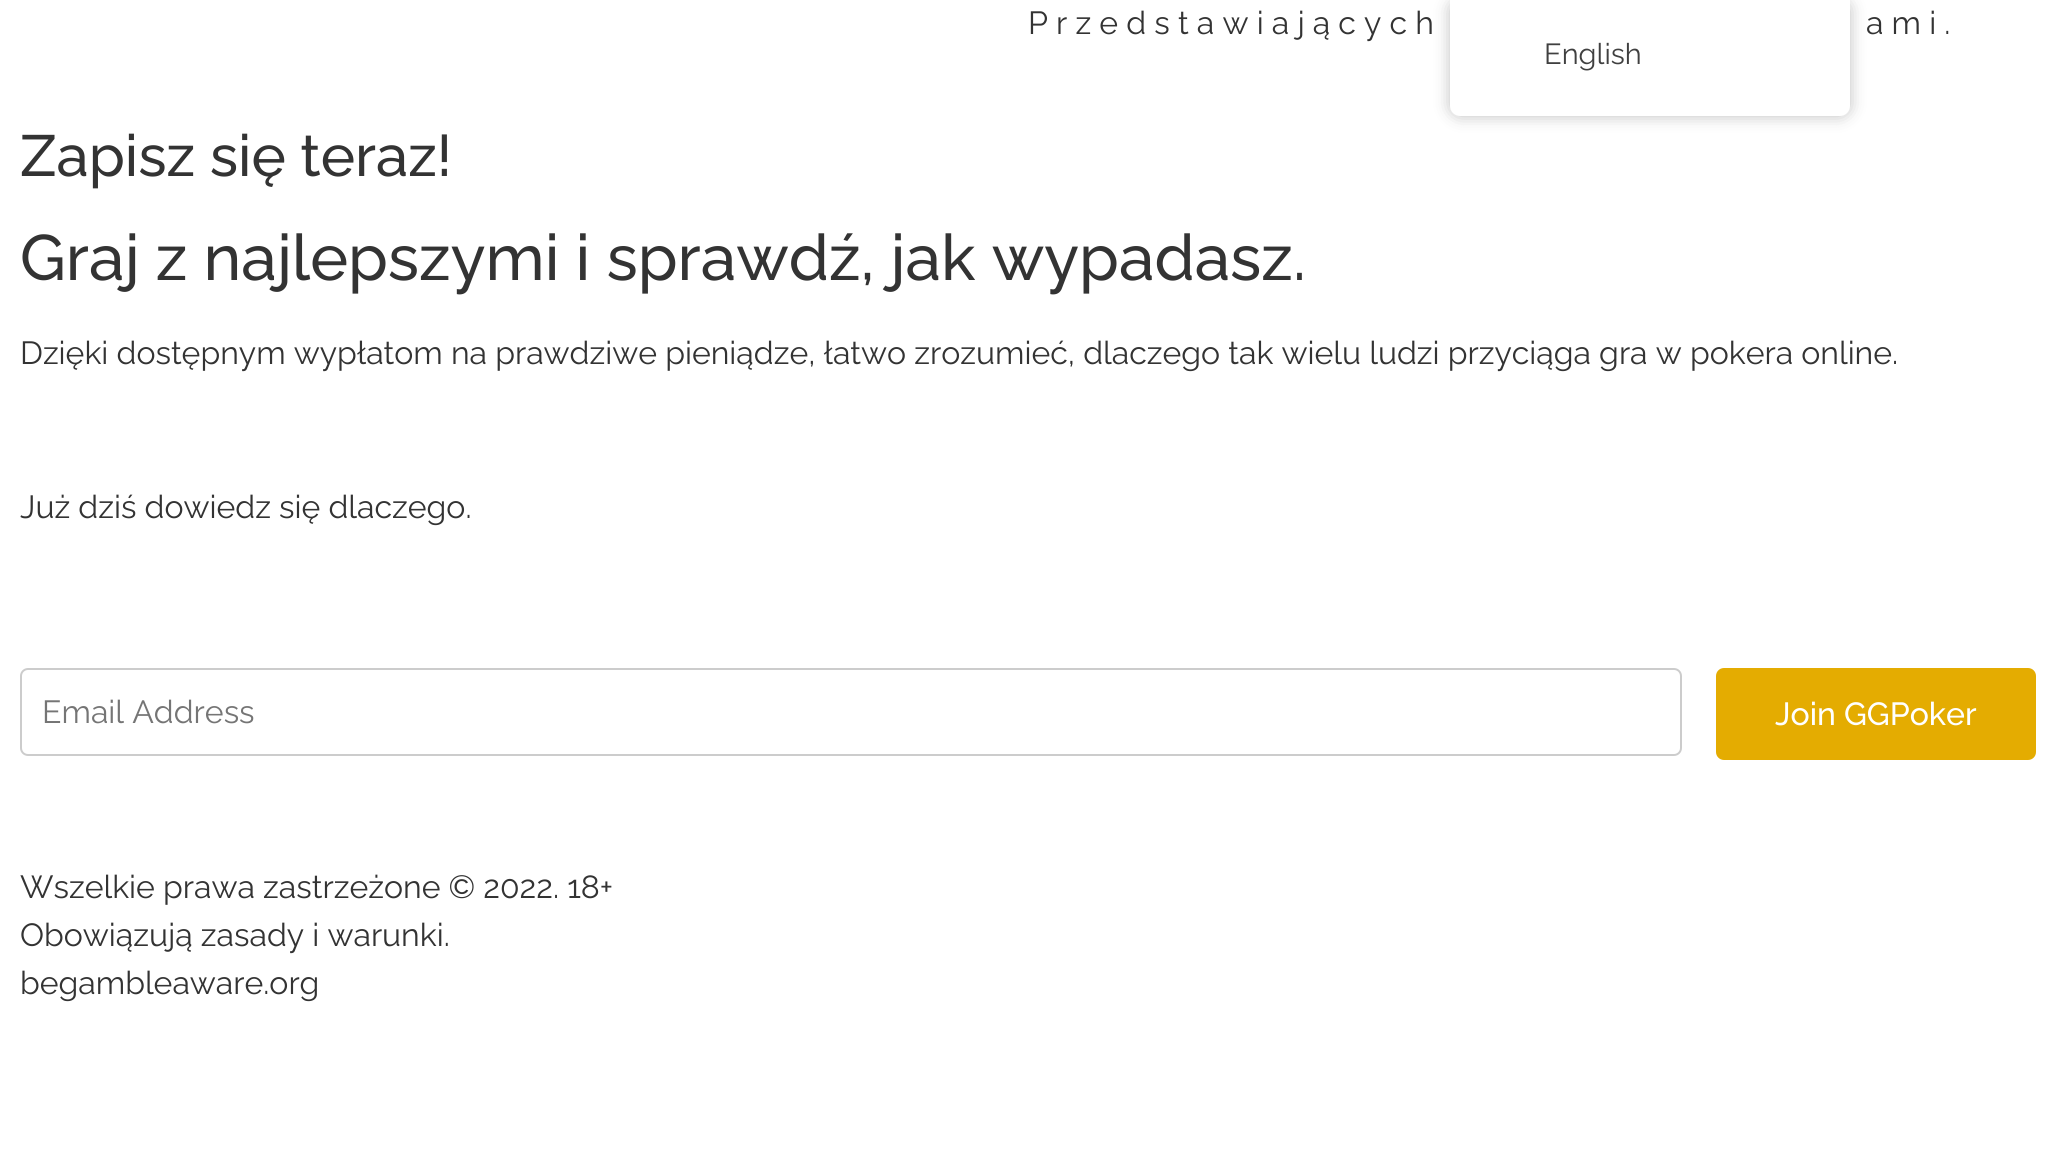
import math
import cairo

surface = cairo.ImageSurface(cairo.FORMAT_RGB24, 2056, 1169)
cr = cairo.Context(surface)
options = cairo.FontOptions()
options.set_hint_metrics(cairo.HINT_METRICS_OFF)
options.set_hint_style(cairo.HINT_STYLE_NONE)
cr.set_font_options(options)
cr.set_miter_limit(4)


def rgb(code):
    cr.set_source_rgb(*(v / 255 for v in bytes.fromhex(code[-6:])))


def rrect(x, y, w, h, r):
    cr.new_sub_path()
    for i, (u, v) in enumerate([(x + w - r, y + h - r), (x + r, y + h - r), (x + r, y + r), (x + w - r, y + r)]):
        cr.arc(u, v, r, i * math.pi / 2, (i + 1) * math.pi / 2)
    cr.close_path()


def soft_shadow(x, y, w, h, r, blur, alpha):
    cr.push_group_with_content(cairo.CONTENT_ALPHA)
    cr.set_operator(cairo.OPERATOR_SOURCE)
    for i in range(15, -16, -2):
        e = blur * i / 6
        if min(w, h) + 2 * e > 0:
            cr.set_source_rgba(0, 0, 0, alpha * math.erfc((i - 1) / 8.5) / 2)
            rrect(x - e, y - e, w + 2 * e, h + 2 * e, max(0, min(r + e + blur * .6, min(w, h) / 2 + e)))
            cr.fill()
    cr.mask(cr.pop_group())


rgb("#ffffff")
cr.paint()
rrect(21, 669, 1660, 86, 7)
rgb("#cccccc")
cr.stroke()
rgb("#e4ac01")
rrect(1717, 669, 318, 90, 7)
cr.fill_preserve()
cr.stroke()
rgb("#000000")
soft_shadow(1450, 0, 400, 116, 10, 8, 0.25)
rgb("#ffffff")
cr.new_path()
cr.move_to(1450, 0)
cr.line_to(1850, 0)
cr.line_to(1850, 106)
cr.curve_to(1850, 111.5, 1845.5, 116, 1840, 116)
cr.line_to(1460, 116)
cr.curve_to(1454.5, 116, 1450, 111.5, 1450, 106)
cr.close_path()
cr.fill()
cr.select_font_face("Raleway")
cr.set_font_size(32)
rgb("#333333")
cr.move_to(1028, 34)
cr.show_text("P r z e d s t a w i a j ą c y c h")
cr.move_to(1866, 34)
cr.show_text("a m i .")
cr.select_font_face("Raleway Medium")
cr.set_font_size(58)
cr.move_to(20, 176)
cr.show_text("Zapisz się teraz!")
cr.set_font_size(64)
cr.move_to(20, 280)
cr.show_text("Graj z najlepszymi i sprawdź, jak wypadasz.")
cr.select_font_face("Raleway")
cr.set_font_size(32)
cr.move_to(20, 364)
cr.show_text("Dzięki dostępnym wypłatom na prawdziwe pieniądze, łatwo zrozumieć, dlaczego tak wielu ludzi przyciąga gra w pokera online.")
cr.move_to(20, 518)
cr.show_text("Już dziś dowiedz się dlaczego.")
rgb("#757575")
cr.move_to(42, 723)
cr.show_text("Email Address")
cr.select_font_face("Raleway Medium")
rgb("#ffffff")
cr.move_to(1775, 725)
cr.show_text("Join GGPoker")
cr.select_font_face("Raleway")
rgb("#333333")
for x, y, s in [
    (20, 898, "Wszelkie prawa zastrzeżone © 2022. 18+"),
    (20, 946, "Obowiązują zasady i warunki."),
    (20, 994, "begambleaware.org"),
]:
    cr.move_to(x, y)
    cr.show_text(s)
cr.set_font_size(29)
rgb("#404040")
cr.move_to(1544, 64)
cr.show_text("English")
surface.write_to_png("page.png")
